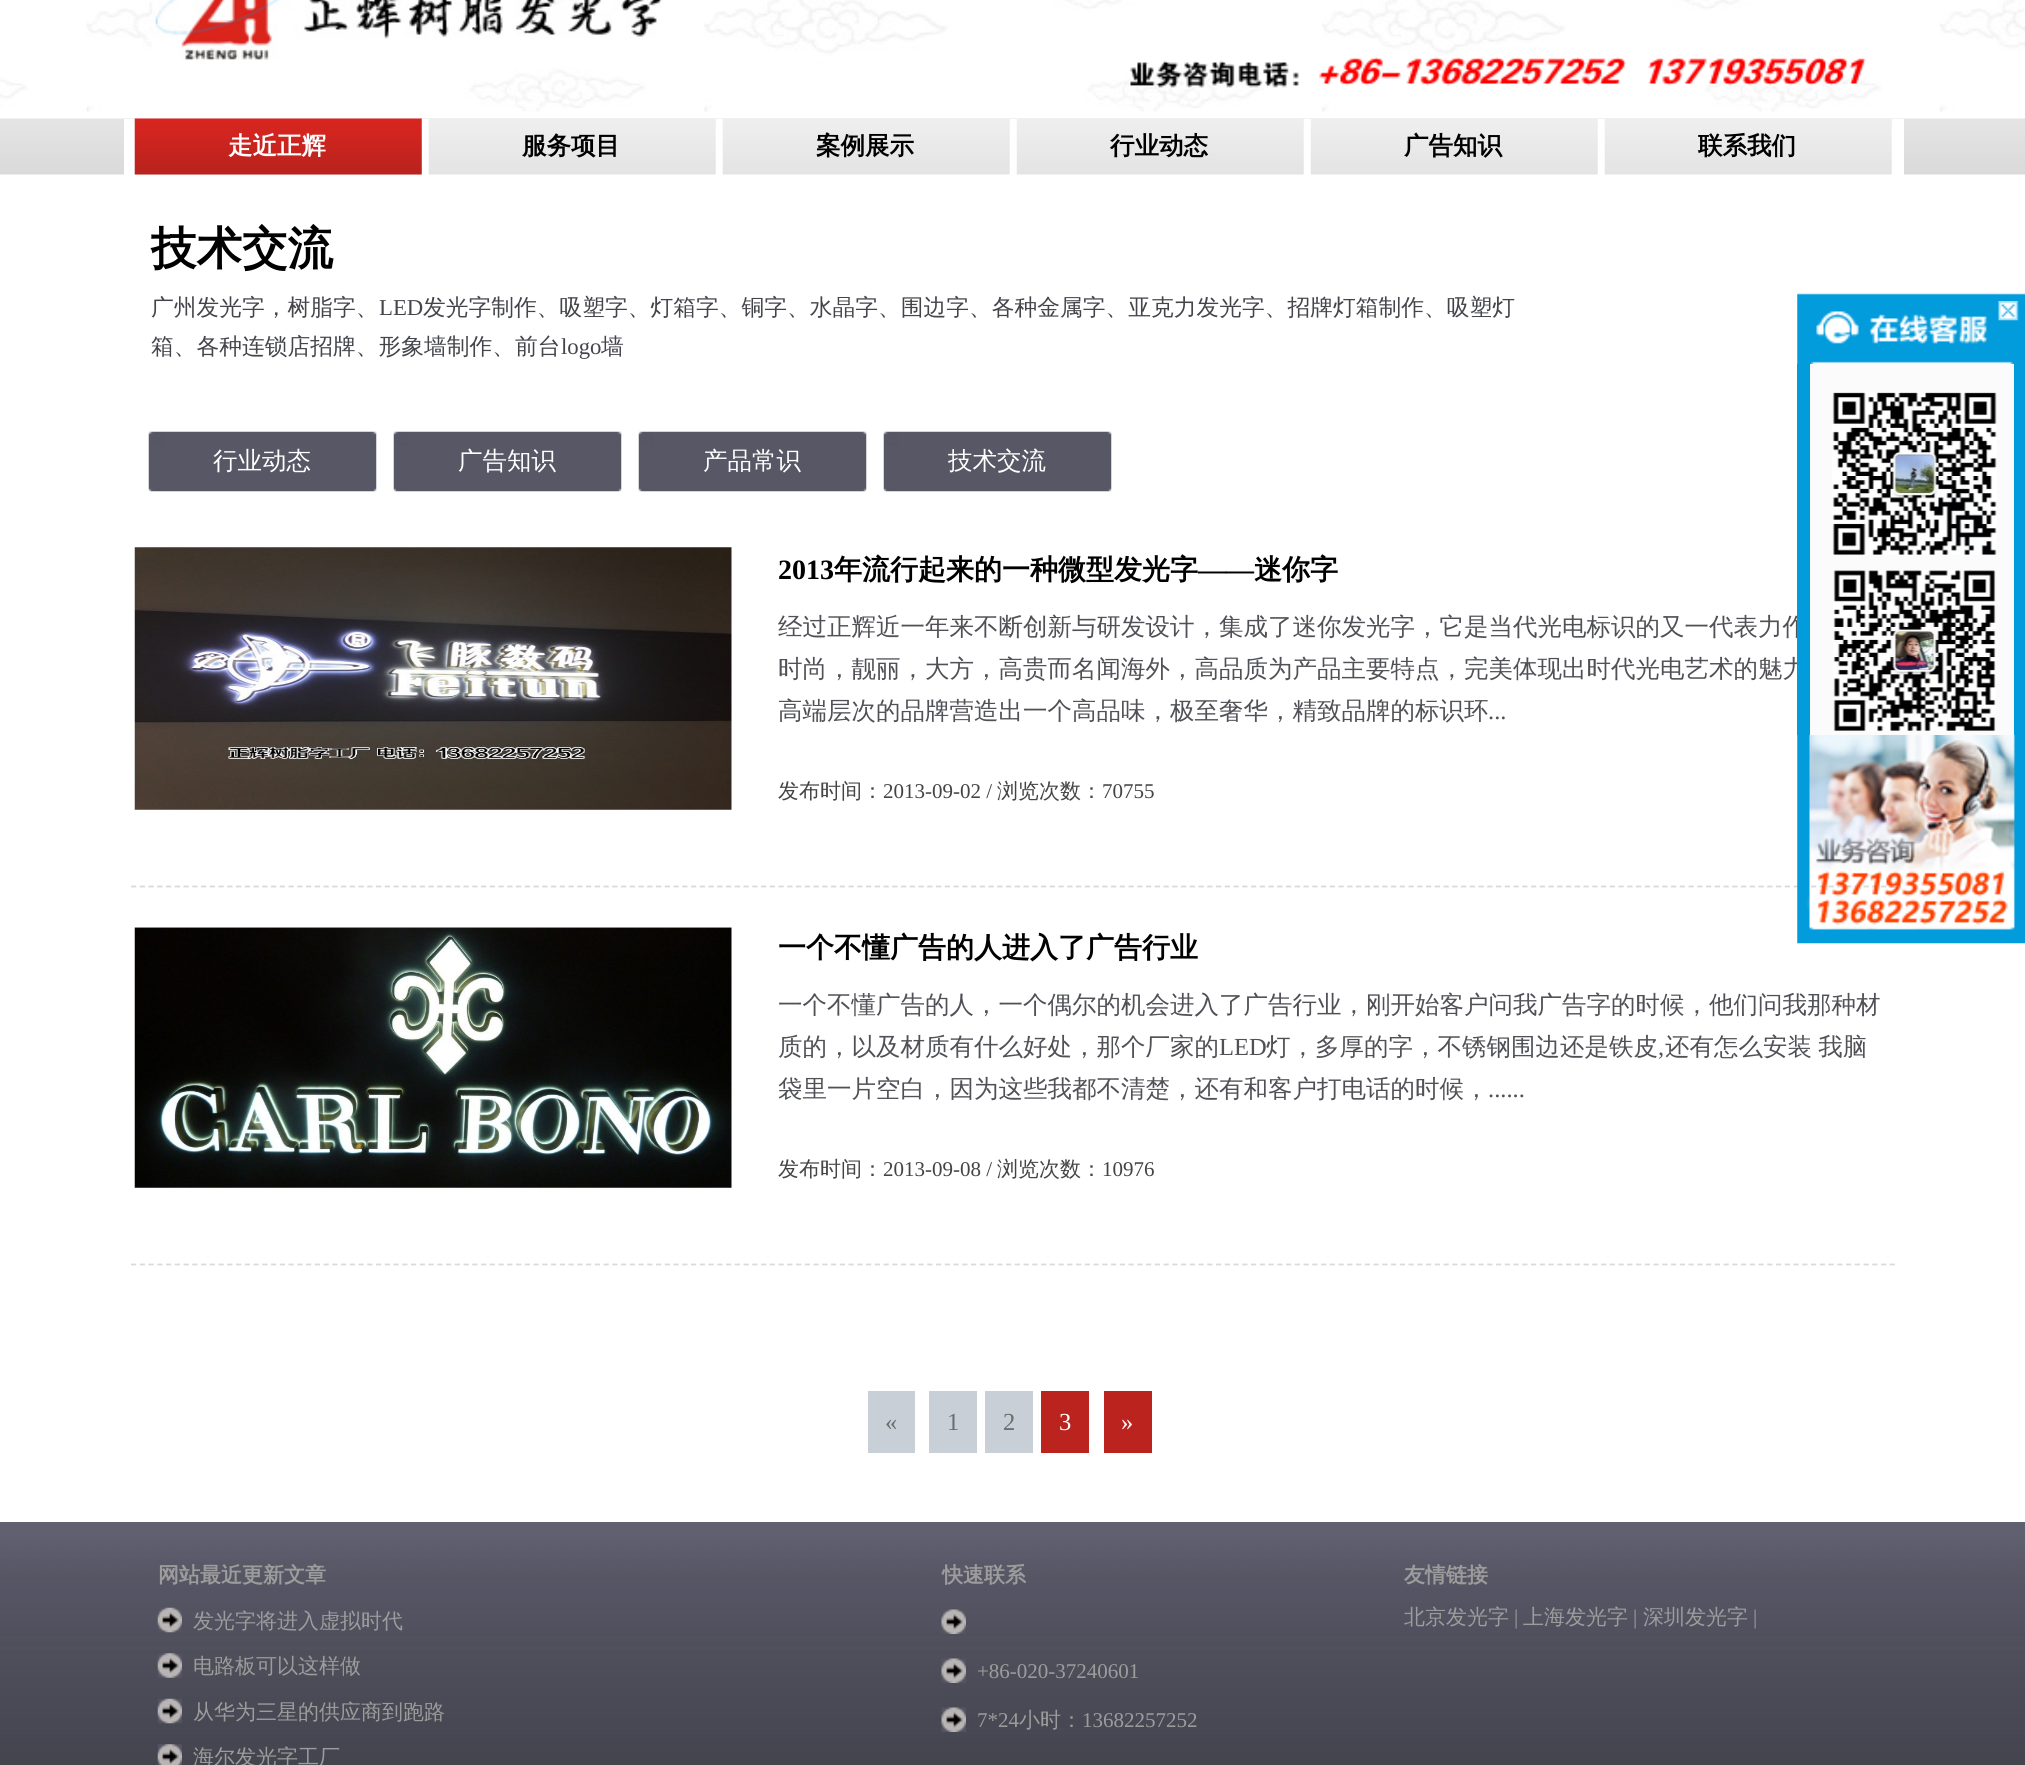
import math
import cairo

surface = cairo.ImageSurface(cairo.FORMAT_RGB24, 2025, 1765)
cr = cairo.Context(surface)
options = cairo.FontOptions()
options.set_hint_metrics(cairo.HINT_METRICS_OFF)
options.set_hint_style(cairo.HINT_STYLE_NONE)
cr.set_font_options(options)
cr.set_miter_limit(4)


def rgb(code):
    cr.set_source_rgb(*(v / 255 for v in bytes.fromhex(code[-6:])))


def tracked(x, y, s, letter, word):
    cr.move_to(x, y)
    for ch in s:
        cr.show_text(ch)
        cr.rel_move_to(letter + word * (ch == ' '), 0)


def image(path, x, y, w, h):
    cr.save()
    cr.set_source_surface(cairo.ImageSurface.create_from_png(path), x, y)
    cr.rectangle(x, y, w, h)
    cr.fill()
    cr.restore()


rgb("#ffffff")
cr.paint()
image("img/1.png", 0, 0, 2025, 112)
image("img/2.png", 152, 0, 510, 60)
image("img/3.png", 1129, 57, 737, 32)
image("img/4.png", 0, 118, 2025, 57)
rgb("#ffffff")
cr.rectangle(124, 119, 1780, 56)
cr.fill()
image("img/5.png", 134, 119, 288, 56)
image("img/6.png", 134, 118, 288, 57)
image("img/5.png", 428, 119, 288, 56)
image("img/5.png", 722, 119, 288, 56)
image("img/5.png", 1016, 119, 288, 56)
image("img/5.png", 1310, 119, 288, 56)
image("img/5.png", 1604, 119, 288, 56)
image("img/7.png", 148, 431, 229, 61)
image("img/7.png", 393, 431, 229, 61)
image("img/7.png", 638, 431, 229, 61)
image("img/8.png", 883, 431, 229, 61)
cr.new_path()
cr.move_to(131, 886.5)
cr.line_to(1897, 886.5)
rgb("#dadada")
cr.set_line_width(1.8)
cr.set_dash([5.25, 3.5])
cr.stroke()
image("img/9.png", 134, 547, 598, 263)
cr.new_path()
cr.move_to(131, 1264.5)
cr.line_to(1897, 1264.5)
cr.stroke()
image("img/10.png", 134, 927, 598, 261)
for x, y, w, h, color in [
    (868, 1391, 47, 62, "#c8cfd6"),
    (929, 1391, 48, 62, "#c8cfd6"),
    (985, 1391, 48, 62, "#c8cfd6"),
    (1041, 1391, 48, 62, "#bb231e"),
    (1104, 1391, 48, 62, "#bb231e"),
]:
    rgb(color)
    cr.rectangle(x, y, w, h)
    cr.fill()
image("img/11.png", 1797, 293, 228, 71)
image("img/12.png", 1998, 301, 21, 20)
rgb("#fbfbfb")
cr.rectangle(1810, 364, 204, 371)
cr.fill()
rgb("#029bdb")
cr.rectangle(2014, 364, 11, 371)
cr.fill()
image("img/13.png", 1832, 392, 165, 163)
image("img/14.png", 1833, 570, 163, 161)
image("img/15.png", 1797, 735, 228, 209)
image("img/16.png", 0, 1522, 2025, 243)
image("img/17.png", 157, 1607, 25, 26)
image("img/18.png", 157, 1653, 25, 25)
image("img/19.png", 157, 1698, 25, 26)
image("img/20.png", 157, 1744, 25, 21)
image("img/21.png", 941, 1609, 25, 25)
image("img/22.png", 941, 1658, 25, 25)
image("img/23.png", 941, 1707, 25, 25)
cr.select_font_face("WenQuanYi Zen Hei", cairo.FONT_SLANT_NORMAL, cairo.FONT_WEIGHT_BOLD)
cr.set_font_size(24.5)
rgb("#ffffff")
cr.move_to(228, 154)
cr.show_text("走近正辉")
rgb("#000000")
for x, y, s in [
    (522, 154, "服务项目"),
    (816, 154, "案例展示"),
    (1110, 154, "行业动态"),
    (1404, 154, "广告知识"),
    (1698, 154, "联系我们"),
]:
    cr.move_to(x, y)
    cr.show_text(s)
cr.set_font_size(45.5)
cr.move_to(151, 264)
cr.show_text("技术交流")
cr.select_font_face("WenQuanYi Zen Hei Medium")
cr.set_font_size(22.75)
rgb("#44454b")
cr.move_to(151, 315)
cr.show_text("广州发光字，树脂字、")
cr.select_font_face("Liberation Serif")
cr.move_to(379, 315)
cr.show_text("LED")
cr.select_font_face("WenQuanYi Zen Hei Medium")
cr.move_to(423, 315)
cr.show_text("发光字制作、吸塑字、灯箱字、铜字、水晶字、围边字、各种金属字、亚克力发光字、招牌灯箱制作、吸塑灯")
cr.move_to(151, 354)
cr.show_text("箱、各种连锁店招牌、形象墙制作、前台")
cr.select_font_face("Liberation Serif")
cr.move_to(561, 354)
cr.show_text("logo")
cr.select_font_face("WenQuanYi Zen Hei Medium")
cr.move_to(601, 354)
cr.show_text("墙")
cr.set_font_size(24.5)
rgb("#ffffff")
for x, y, s in [
    (213, 469, "行业动态"),
    (458, 469, "广告知识"),
    (703, 469, "产品常识"),
    (948, 469, "技术交流"),
]:
    cr.move_to(x, y)
    cr.show_text(s)
cr.select_font_face("Liberation Serif", cairo.FONT_SLANT_NORMAL, cairo.FONT_WEIGHT_BOLD)
cr.set_font_size(28)
rgb("#000000")
cr.move_to(778, 579)
cr.show_text("2013")
cr.select_font_face("WenQuanYi Zen Hei", cairo.FONT_SLANT_NORMAL, cairo.FONT_WEIGHT_BOLD)
cr.move_to(834, 579)
cr.show_text("年流行起来的一种微型发光字")
cr.select_font_face("Liberation Serif", cairo.FONT_SLANT_NORMAL, cairo.FONT_WEIGHT_BOLD)
cr.move_to(1198, 579)
cr.show_text("——")
cr.select_font_face("WenQuanYi Zen Hei", cairo.FONT_SLANT_NORMAL, cairo.FONT_WEIGHT_BOLD)
cr.move_to(1254, 579)
cr.show_text("迷你字")
cr.select_font_face("WenQuanYi Zen Hei Medium")
cr.set_font_size(24.5)
rgb("#505156")
for x, y, s in [
    (778, 635, "经过正辉近一年来不断创新与研发设计，集成了迷你发光字，它是当代光电标识的又一代表力作"),
    (778, 677, "时尚，靓丽，大方，高贵而名闻海外，高品质为产品主要特点，完美体现出时代光电艺术的魅力"),
    (778, 719, "高端层次的品牌营造出一个高品味，极至奢华，精致品牌的标识环"),
]:
    cr.move_to(x, y)
    cr.show_text(s)
cr.select_font_face("Liberation Serif")
cr.move_to(1488, 719)
cr.show_text("...")
cr.select_font_face("WenQuanYi Zen Hei Medium")
cr.set_font_size(21)
rgb("#444444")
cr.move_to(778, 798)
cr.show_text("发布时间：")
cr.select_font_face("Liberation Serif")
cr.move_to(883, 798)
cr.show_text("2013-09-02 /")
cr.select_font_face("WenQuanYi Zen Hei Medium")
cr.move_to(997, 798)
cr.show_text("浏览次数：")
cr.select_font_face("Liberation Serif")
cr.move_to(1102, 798)
cr.show_text("70755")
cr.select_font_face("WenQuanYi Zen Hei", cairo.FONT_SLANT_NORMAL, cairo.FONT_WEIGHT_BOLD)
cr.set_font_size(28)
rgb("#000000")
cr.move_to(778, 957)
cr.show_text("一个不懂广告的人进入了广告行业")
cr.select_font_face("WenQuanYi Zen Hei Medium")
cr.set_font_size(24.5)
rgb("#505156")
cr.move_to(778, 1013)
cr.show_text("一个不懂广告的人，一个偶尔的机会进入了广告行业，刚开始客户问我广告字的时候，他们问我那种材")
cr.move_to(778, 1055)
cr.show_text("质的，以及材质有什么好处，那个厂家的")
cr.select_font_face("Liberation Serif")
cr.move_to(1219, 1055)
cr.show_text("LED")
cr.select_font_face("WenQuanYi Zen Hei Medium")
cr.move_to(1266, 1055)
cr.show_text("灯，多厚的字，不锈钢围边还是铁皮")
cr.select_font_face("Liberation Serif")
cr.move_to(1658, 1055)
cr.show_text(",")
cr.select_font_face("WenQuanYi Zen Hei Medium")
tracked(1665, 1055, "还有怎么安装 我脑", 0, -1)
cr.move_to(778, 1097)
cr.show_text("袋里一片空白，因为这些我都不清楚，还有和客户打电话的时候，")
cr.select_font_face("Liberation Serif")
cr.move_to(1488, 1097)
cr.show_text("......")
cr.select_font_face("WenQuanYi Zen Hei Medium")
cr.set_font_size(21)
rgb("#444444")
cr.move_to(778, 1176)
cr.show_text("发布时间：")
cr.select_font_face("Liberation Serif")
cr.move_to(883, 1176)
cr.show_text("2013-09-08 /")
cr.select_font_face("WenQuanYi Zen Hei Medium")
cr.move_to(997, 1176)
cr.show_text("浏览次数：")
cr.select_font_face("Liberation Serif")
cr.move_to(1102, 1176)
cr.show_text("10976")
cr.set_font_size(24.5)
rgb("#6c6d6d")
for x, y, s in [
    (885, 1430, "«"),
    (947, 1430, "1"),
    (1003, 1430, "2"),
]:
    cr.move_to(x, y)
    cr.show_text(s)
rgb("#ffffff")
cr.move_to(1059, 1430)
cr.show_text("3")
cr.move_to(1121, 1430)
cr.show_text("»")
rgb("#029bdb")
cr.rectangle(1797, 364, 13, 371)
cr.fill()
cr.select_font_face("WenQuanYi Zen Hei", cairo.FONT_SLANT_NORMAL, cairo.FONT_WEIGHT_BOLD)
cr.set_font_size(21)
rgb("#9c9c9c")
cr.move_to(158, 1582)
cr.show_text("网站最近更新文章")
cr.select_font_face("WenQuanYi Zen Hei Medium")
for x, y, s in [
    (193, 1628, "发光字将进入虚拟时代"),
    (193, 1673, "电路板可以这样做"),
    (193, 1719, "从华为三星的供应商到跑路"),
    (193, 1764, "海尔发光字工厂"),
]:
    cr.move_to(x, y)
    cr.show_text(s)
cr.select_font_face("WenQuanYi Zen Hei", cairo.FONT_SLANT_NORMAL, cairo.FONT_WEIGHT_BOLD)
cr.move_to(942, 1582)
cr.show_text("快速联系")
cr.select_font_face("Liberation Serif")
cr.move_to(977, 1678)
cr.show_text("+86-020-37240601")
cr.move_to(977, 1727)
cr.show_text("7*24")
cr.select_font_face("WenQuanYi Zen Hei Medium")
cr.move_to(1019, 1727)
cr.show_text("小时：")
cr.select_font_face("Liberation Serif")
cr.move_to(1082, 1727)
cr.show_text("13682257252")
cr.select_font_face("WenQuanYi Zen Hei", cairo.FONT_SLANT_NORMAL, cairo.FONT_WEIGHT_BOLD)
cr.move_to(1404, 1582)
cr.show_text("友情链接")
cr.select_font_face("WenQuanYi Zen Hei Medium")
cr.move_to(1404, 1624)
cr.show_text("北京发光字")
cr.select_font_face("Liberation Serif")
cr.move_to(1514, 1624)
cr.show_text("|")
cr.select_font_face("WenQuanYi Zen Hei Medium")
cr.move_to(1523, 1624)
cr.show_text("上海发光字")
cr.select_font_face("Liberation Serif")
cr.move_to(1633, 1624)
cr.show_text("|")
cr.select_font_face("WenQuanYi Zen Hei Medium")
cr.move_to(1643, 1624)
cr.show_text("深圳发光字")
cr.select_font_face("Liberation Serif")
cr.move_to(1753, 1624)
cr.show_text("|")
surface.write_to_png("page.png")
